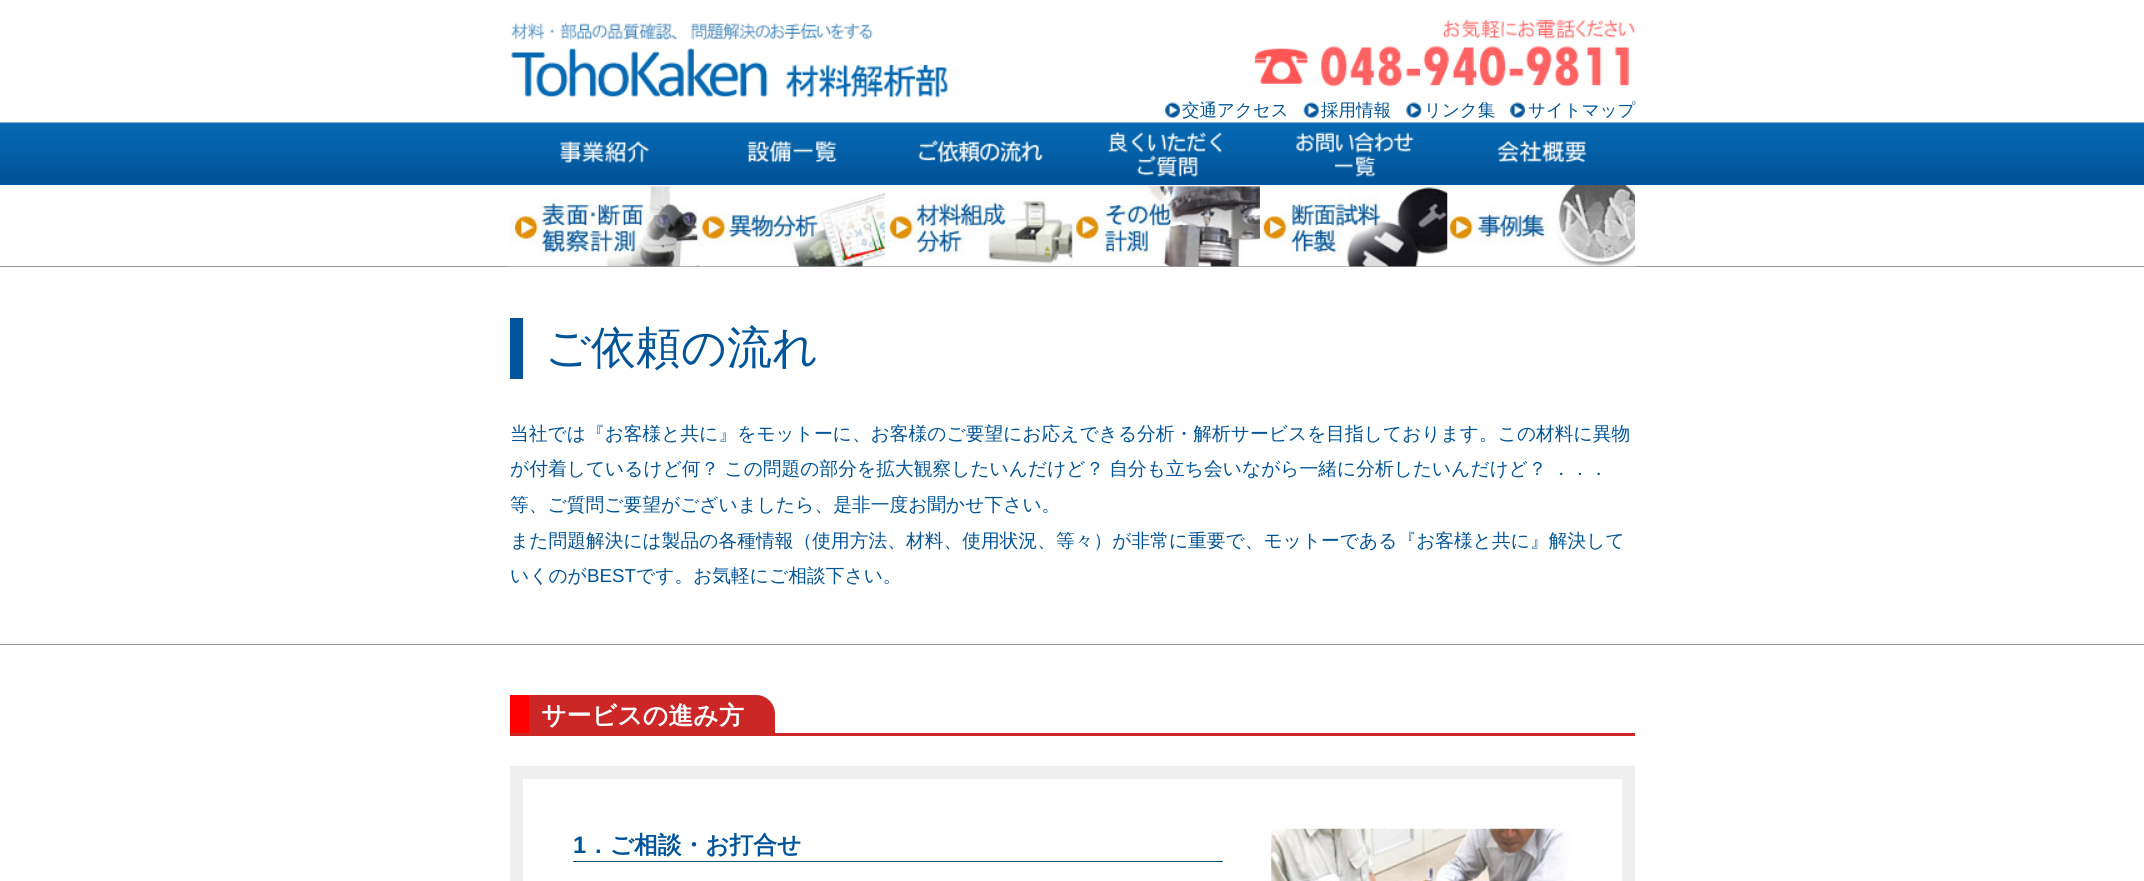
import math
import cairo

surface = cairo.ImageSurface(cairo.FORMAT_RGB24, 2144, 881)
cr = cairo.Context(surface)
options = cairo.FontOptions()
options.set_hint_metrics(cairo.HINT_METRICS_OFF)
options.set_hint_style(cairo.HINT_STYLE_NONE)
cr.set_font_options(options)
cr.set_miter_limit(4)


def rgb(code):
    cr.set_source_rgb(*(v / 255 for v in bytes.fromhex(code[-6:])))


def tracked(x, y, s, letter, word):
    cr.move_to(x, y)
    for ch in s:
        cr.show_text(ch)
        cr.rel_move_to(letter + word * (ch == ' '), 0)


def image(path, x, y, w, h):
    cr.save()
    cr.set_source_surface(cairo.ImageSurface.create_from_png(path), x, y)
    cr.rectangle(x, y, w, h)
    cr.fill()
    cr.restore()


rgb("#ffffff")
cr.paint()
image("img/1.png", 511, 22, 437, 76)
image("img/2.png", 1255, 20, 380, 67)
image("img/3.png", 1165, 102, 15, 16)
image("img/4.png", 1303, 102, 16, 16)
image("img/5.png", 1406, 102, 16, 16)
image("img/6.png", 1510, 102, 15, 16)
rgb("#015499")
cr.rectangle(0, 171, 2144, 14)
cr.fill()
image("img/7.png", 0, 122, 2144, 49)
image("img/8.png", 560, 141, 89, 22)
image("img/9.png", 747, 141, 90, 22)
image("img/10.png", 918, 140, 125, 23)
image("img/11.png", 1108, 132, 114, 45)
image("img/12.png", 1296, 132, 118, 45)
image("img/13.png", 1497, 141, 90, 22)
rgb("#999999")
cr.rectangle(0, 266, 2144, 1)
cr.fill()
image("img/14.png", 510, 185, 188, 82)
image("img/15.png", 697, 192, 188, 75)
image("img/16.png", 885, 195, 188, 72)
image("img/17.png", 1072, 185, 188, 82)
image("img/18.png", 1260, 185, 188, 82)
image("img/19.png", 1447, 185, 188, 82)
for x, y, w, h, color in [
    (0, 644, 2144, 1, "#999999"),
    (510, 318, 13, 61, "#015499"),
    (510, 733, 1125, 3, "#cc2627"),
]:
    rgb(color)
    cr.rectangle(x, y, w, h)
    cr.fill()
cr.new_path()
cr.move_to(510, 695)
cr.line_to(756, 695)
cr.curve_to(766.5, 695, 775, 703.5, 775, 714)
cr.line_to(775, 733)
cr.line_to(510, 733)
cr.close_path()
cr.fill()
rgb("#ff0000")
cr.rectangle(510, 695, 19, 38)
cr.fill()
cr.rectangle(516.5, 772.5, 1112, 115)
rgb("#eeeeee")
cr.set_line_width(13)
cr.stroke()
rgb("#015477")
cr.rectangle(573, 861, 650, 1)
cr.fill()
image("img/20.png", 1271, 828, 302, 53)
cr.select_font_face("WenQuanYi Zen Hei Medium")
cr.set_font_size(17.5)
rgb("#015499")
for x, y, s in [
    (1182, 116, "交通アクセス"),
    (1321, 116, "採用情報"),
    (1424, 116, "リンク集"),
    (1528, 116, "サイトマップ"),
]:
    cr.move_to(x, y)
    cr.show_text(s)
cr.set_font_size(45)
cr.move_to(545, 363)
cr.show_text("ご依頼の流れ")
cr.set_font_size(18.75)
cr.move_to(510, 440)
cr.show_text("当社では『お客様と共に』をモットーに、お客様のご要望にお応えできる分析・解析サービスを目指しております。この材料に異物")
tracked(510, 475, "が付着しているけど何？ この問題の部分を拡大観察したいんだけど？ 自分も立ち会いながら一緒に分析したいんだけど？ ．．．", 0, -0.5)
for x, y, s in [
    (510, 511, "等、ご質問ご要望がございましたら、是非一度お聞かせ下さい。"),
    (510, 547, "また問題解決には製品の各種情報（使用方法、材料、使用状況、等々）が非常に重要で、モットーである『お客様と共に』解決して"),
    (510, 582, "いくのが"),
]:
    cr.move_to(x, y)
    cr.show_text(s)
cr.select_font_face("Liberation Sans")
cr.move_to(587, 582)
cr.show_text("BEST")
cr.select_font_face("WenQuanYi Zen Hei Medium")
cr.move_to(636, 582)
cr.show_text("です。お気軽にご相談下さい。")
cr.select_font_face("WenQuanYi Zen Hei", cairo.FONT_SLANT_NORMAL, cairo.FONT_WEIGHT_BOLD)
cr.set_font_size(25)
rgb("#ffffff")
cr.move_to(541, 724)
cr.show_text("サービスの進み方")
cr.select_font_face("Liberation Sans", cairo.FONT_SLANT_NORMAL, cairo.FONT_WEIGHT_BOLD)
cr.set_font_size(23.75)
rgb("#015499")
cr.move_to(573, 853)
cr.show_text("1")
cr.select_font_face("WenQuanYi Zen Hei", cairo.FONT_SLANT_NORMAL, cairo.FONT_WEIGHT_BOLD)
cr.move_to(586, 853)
cr.show_text("．ご相談・お打合せ")
surface.write_to_png("page.png")
